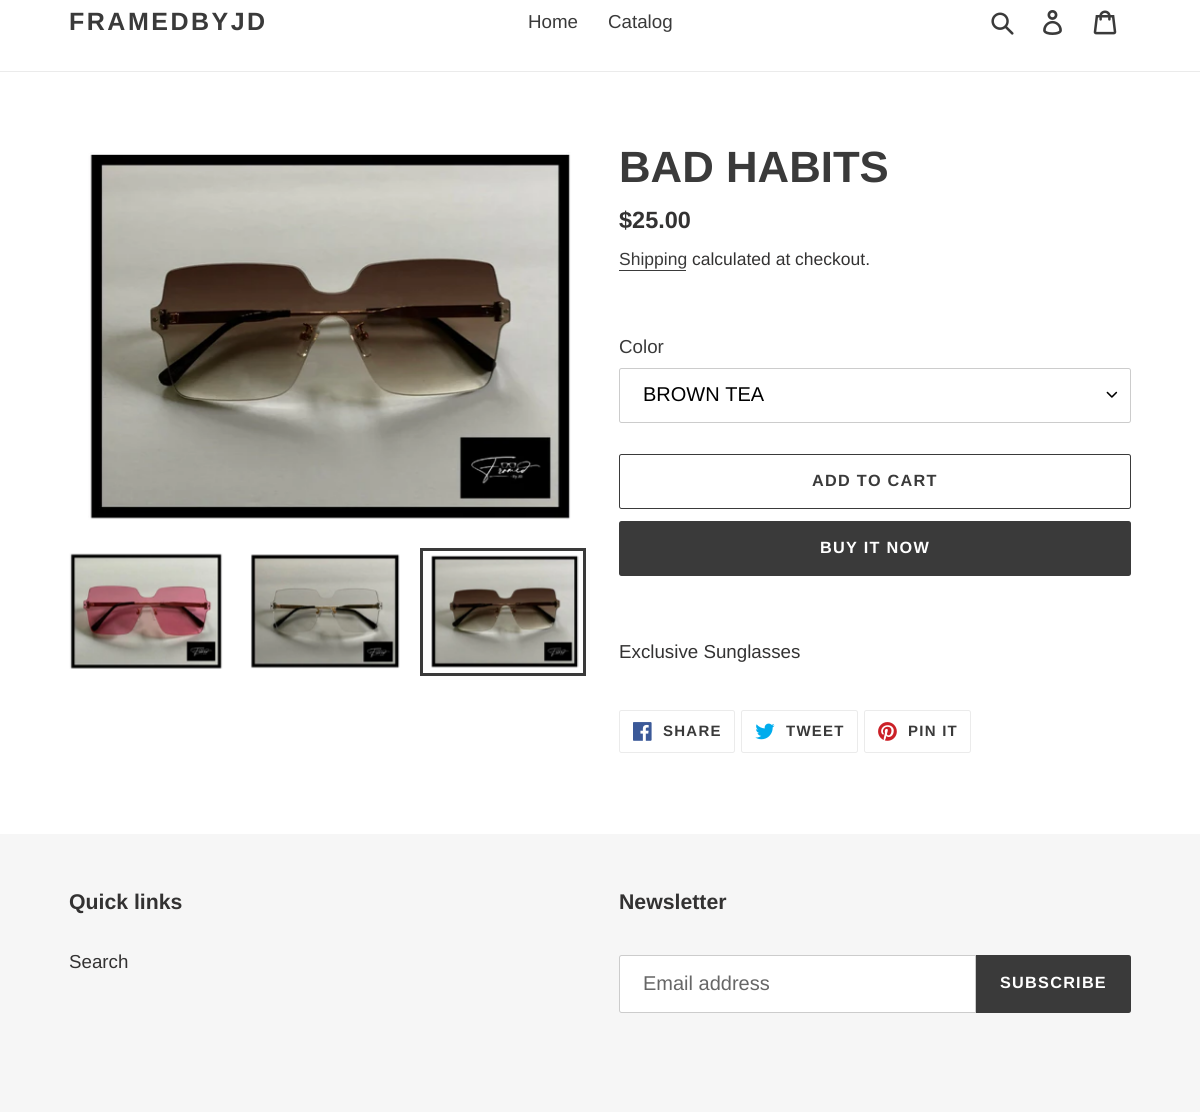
import math
import cairo

surface = cairo.ImageSurface(cairo.FORMAT_RGB24, 1200, 1112)
cr = cairo.Context(surface)
options = cairo.FontOptions()
options.set_hint_metrics(cairo.HINT_METRICS_OFF)
options.set_hint_style(cairo.HINT_STYLE_NONE)
cr.set_font_options(options)
cr.set_miter_limit(4)


def rgb(code):
    cr.set_source_rgb(*(v / 255 for v in bytes.fromhex(code[-6:])))


def tracked(x, y, s, letter, word):
    cr.move_to(x, y)
    for ch in s:
        cr.show_text(ch)
        cr.rel_move_to(letter + word * (ch == ' '), 0)


def rrect(x, y, w, h, r):
    cr.new_sub_path()
    for i, (u, v) in enumerate([(x + w - r, y + h - r), (x + r, y + h - r), (x + r, y + r), (x + w - r, y + r)]):
        cr.arc(u, v, r, i * math.pi / 2, (i + 1) * math.pi / 2)
    cr.close_path()


def image(path, x, y, w, h):
    cr.save()
    cr.set_source_surface(cairo.ImageSurface.create_from_png(path), x, y)
    cr.rectangle(x, y, w, h)
    cr.fill()
    cr.restore()


rgb("#ffffff")
cr.paint()
rgb("#ebebeb")
cr.rectangle(0, 71, 1200, 1)
cr.fill()
image("img/1.png", 991, 12, 23, 23)
image("img/2.png", 1043, 10, 19, 25)
image("img/3.png", 1093, 10, 24, 25)
image("img/4.png", 88, 152, 483, 368)
image("img/5.png", 69, 553, 154, 116)
image("img/6.png", 250, 554, 150, 115)
cr.rectangle(421.5, 549.5, 163, 125)
rgb("#3a3a3a")
cr.set_line_width(3)
cr.stroke()
image("img/7.png", 431, 555, 148, 113)
cr.rectangle(619, 270, 67, 1)
cr.fill()
image("img/8.png", 1106, 391, 12, 7)
rrect(619.5, 368.5, 511, 54, 2)
rgb("#cccccc")
cr.set_line_width(1)
cr.stroke()
rrect(619.5, 454.5, 511, 54, 2)
rgb("#3a3a3a")
cr.stroke()
rrect(619, 521, 512, 55, 2.5)
cr.fill()
rrect(619.5, 710.5, 115, 42, 2)
rgb("#ebebeb")
cr.stroke()
image("img/9.png", 633, 722, 19, 19)
rrect(741.5, 710.5, 116, 42, 2)
cr.stroke()
image("img/10.png", 755, 723, 20, 17)
rrect(864.5, 710.5, 106, 42, 2)
cr.stroke()
image("img/11.png", 878, 722, 19, 19)
rgb("#f6f6f6")
cr.rectangle(0, 834, 1200, 278)
cr.fill()
rgb("#ffffff")
cr.new_path()
cr.move_to(621.5, 955.5)
cr.line_to(975.5, 955.5)
cr.line_to(975.5, 1012.5)
cr.line_to(621.5, 1012.5)
cr.curve_to(620.5, 1012.5, 619.5, 1011.5, 619.5, 1010.5)
cr.line_to(619.5, 957.5)
cr.curve_to(619.5, 956.5, 620.5, 955.5, 621.5, 955.5)
cr.close_path()
cr.fill_preserve()
rgb("#cccccc")
cr.stroke()
rgb("#3a3a3a")
cr.new_path()
cr.move_to(976, 955)
cr.line_to(1128.5, 955)
cr.curve_to(1130, 955, 1131, 956, 1131, 957.5)
cr.line_to(1131, 1010.5)
cr.curve_to(1131, 1012, 1130, 1013, 1128.5, 1013)
cr.line_to(976, 1013)
cr.close_path()
cr.fill()
cr.select_font_face("Liberation Sans", cairo.FONT_SLANT_NORMAL, cairo.FONT_WEIGHT_BOLD)
cr.set_font_size(25)
tracked(69, 30, "FRAMEDBYJD", 2.5, 0)
cr.select_font_face("Liberation Sans")
cr.set_font_size(18.75)
cr.move_to(528, 28)
cr.show_text("Home")
cr.move_to(608, 28)
cr.show_text("Catalog")
cr.select_font_face("Liberation Sans", cairo.FONT_SLANT_NORMAL, cairo.FONT_WEIGHT_BOLD)
cr.set_font_size(43.75)
cr.move_to(619, 182)
cr.show_text("BAD HABITS")
cr.set_font_size(23.5)
rgb("#333232")
cr.move_to(619, 228)
cr.show_text("$25.00")
cr.select_font_face("Liberation Sans")
cr.set_font_size(17.5)
rgb("#3a3a3a")
cr.move_to(619, 265)
cr.show_text("Shipping")
rgb("#333232")
cr.move_to(692, 265)
cr.show_text("calculated at checkout.")
cr.set_font_size(18.75)
rgb("#3a3a3a")
cr.move_to(619, 353)
cr.show_text("Color")
cr.set_font_size(20)
rgb("#000000")
cr.move_to(643, 401)
cr.show_text("BROWN TEA")
cr.select_font_face("Liberation Sans", cairo.FONT_SLANT_NORMAL, cairo.FONT_WEIGHT_BOLD)
cr.set_font_size(16.25)
rgb("#3a3a3a")
tracked(812, 486, "ADD TO CART", 1.25, 0)
rgb("#ffffff")
tracked(820, 553, "BUY IT NOW", 1.25, 0)
cr.select_font_face("Liberation Sans")
cr.set_font_size(18.75)
rgb("#333232")
cr.move_to(619, 658)
cr.show_text("Exclusive Sunglasses")
cr.select_font_face("Liberation Sans", cairo.FONT_SLANT_NORMAL, cairo.FONT_WEIGHT_BOLD)
cr.set_font_size(15)
rgb("#3a3a3a")
for x, y, s in [
    (663, 736, "SHARE"),
    (786, 736, "TWEET"),
    (908, 736, "PIN IT"),
]:
    tracked(x, y, s, 1.25, 0)
cr.set_font_size(21.25)
rgb("#333232")
cr.move_to(69, 909)
cr.show_text("Quick links")
cr.select_font_face("Liberation Sans")
cr.set_font_size(18.75)
cr.move_to(69, 968)
cr.show_text("Search")
cr.select_font_face("Liberation Sans", cairo.FONT_SLANT_NORMAL, cairo.FONT_WEIGHT_BOLD)
cr.set_font_size(21.25)
cr.move_to(619, 909)
cr.show_text("Newsletter")
cr.select_font_face("Liberation Sans")
cr.set_font_size(20)
rgb("#666666")
cr.move_to(643, 990)
cr.show_text("Email address")
cr.select_font_face("Liberation Sans", cairo.FONT_SLANT_NORMAL, cairo.FONT_WEIGHT_BOLD)
cr.set_font_size(16.25)
rgb("#ffffff")
tracked(1000, 988, "SUBSCRIBE", 1.25, 0)
surface.write_to_png("page.png")
